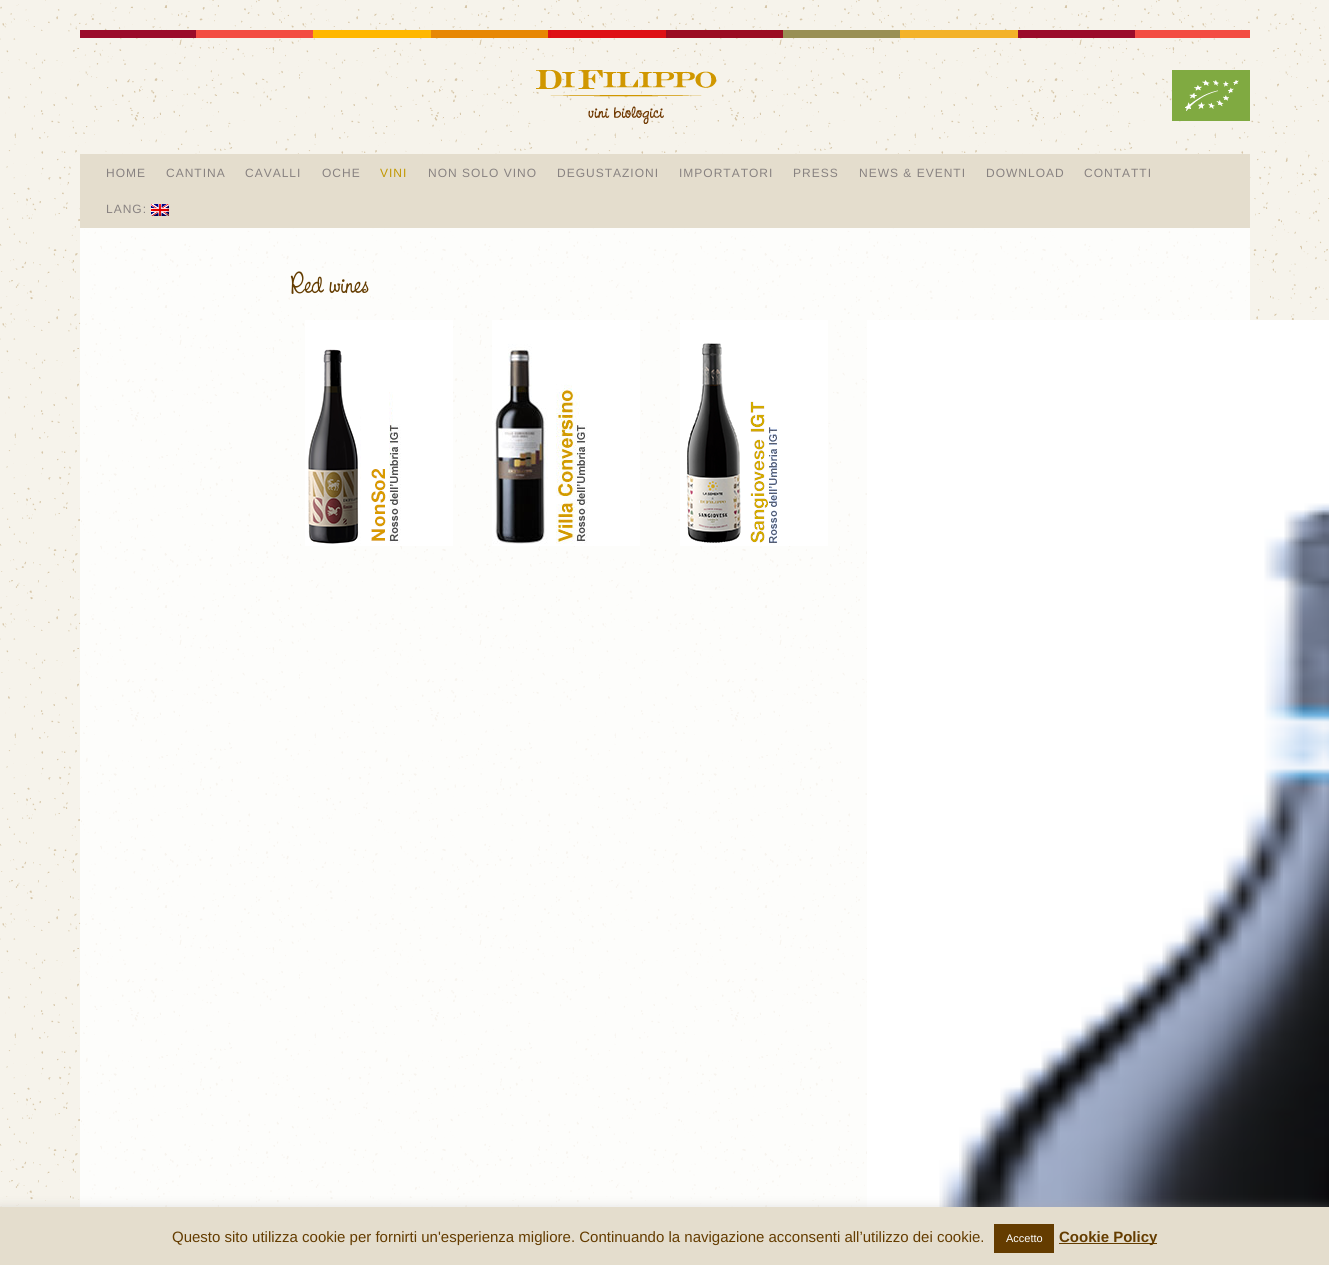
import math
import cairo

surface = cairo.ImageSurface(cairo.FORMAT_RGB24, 1329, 1265)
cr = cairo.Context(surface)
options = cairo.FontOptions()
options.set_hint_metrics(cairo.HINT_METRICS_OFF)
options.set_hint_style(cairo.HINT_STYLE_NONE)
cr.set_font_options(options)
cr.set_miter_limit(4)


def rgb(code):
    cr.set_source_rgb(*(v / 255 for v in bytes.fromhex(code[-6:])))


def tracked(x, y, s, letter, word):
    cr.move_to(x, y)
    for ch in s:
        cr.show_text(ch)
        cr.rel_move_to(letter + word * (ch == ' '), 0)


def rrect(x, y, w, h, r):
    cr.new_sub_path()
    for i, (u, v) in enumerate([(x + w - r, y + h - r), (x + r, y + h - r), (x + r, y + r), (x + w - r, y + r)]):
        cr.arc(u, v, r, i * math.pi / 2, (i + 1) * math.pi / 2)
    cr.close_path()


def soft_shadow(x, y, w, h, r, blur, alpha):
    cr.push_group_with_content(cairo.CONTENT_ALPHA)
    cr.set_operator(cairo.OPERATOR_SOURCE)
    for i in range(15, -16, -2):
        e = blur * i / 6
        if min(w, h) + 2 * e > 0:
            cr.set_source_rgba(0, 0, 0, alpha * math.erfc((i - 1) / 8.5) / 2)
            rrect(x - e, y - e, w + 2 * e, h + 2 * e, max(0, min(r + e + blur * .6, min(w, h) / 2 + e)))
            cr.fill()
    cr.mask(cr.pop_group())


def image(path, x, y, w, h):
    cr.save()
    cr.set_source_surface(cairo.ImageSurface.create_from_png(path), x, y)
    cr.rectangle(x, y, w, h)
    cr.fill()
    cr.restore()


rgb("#ffffff")
cr.paint()
image("img/1.png", 0, 0, 1329, 1207)
image("img/2.png", 80, 30, 1170, 8)
image("img/3.png", 536, 70, 180, 54)
image("img/4.png", 1172, 70, 78, 51)
rgb("#e4ddcd")
cr.rectangle(80, 154, 1170, 74)
cr.fill()
image("img/5.png", 151, 204, 18, 12)
cr.set_source_rgba(1, 1, 1, 0.8)
cr.rectangle(80, 228, 1170, 979)
cr.fill()
image("img/6.png", 305, 320, 148, 226)
image("img/7.png", 492, 320, 148, 226)
image("img/8.png", 680, 320, 148, 226)
image("img/9.png", 867, 320, 462, 887)
rgb("#acabab")
soft_shadow(0, 1206, 1329, 58, 0, 5, 0.3)
for x, y, w, h, color in [
    (0, 1207, 1329, 58, "#e4ddcd"),
    (994, 1224, 60, 29, "#643c00"),
    (1059, 1243, 98, 1, "#643c00"),
]:
    rgb(color)
    cr.rectangle(x, y, w, h)
    cr.fill()
cr.select_font_face("Liberation Sans")
cr.set_font_size(12)
rgb("#888281")
for x, y, s in [
    (106, 177, "HOME"),
    (166, 177, "CANTINA"),
    (245, 177, "CAVALLI"),
    (322, 177, "OCHE"),
]:
    tracked(x, y, s, 1, 0)
rgb("#c19700")
tracked(380, 177, "VINI", 1, 0)
rgb("#888281")
for x, y, s in [
    (428, 177, "NON SOLO VINO"),
    (557, 177, "DEGUSTAZIONI"),
    (679, 177, "IMPORTATORI"),
    (793, 177, "PRESS"),
    (859, 177, "NEWS & EVENTI"),
    (986, 177, "DOWNLOAD"),
    (1084, 177, "CONTATTI"),
    (106, 213, "LANG:"),
]:
    tracked(x, y, s, 1, 0)
cr.select_font_face("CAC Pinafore")
cr.set_font_size(30)
rgb("#643c00")
tracked(290, 293, "Red wines", -1, 0)
cr.select_font_face("Liberation Sans")
cr.set_font_size(15)
cr.move_to(172, 1242)
cr.show_text("Questo sito utilizza cookie per fornirti un'esperienza migliore. Continuando la navigazione acconsenti all’utilizzo dei cookie.")
cr.set_font_size(11)
rgb("#ffffff")
cr.move_to(1006, 1242)
cr.show_text("Accetto")
cr.select_font_face("Liberation Sans", cairo.FONT_SLANT_NORMAL, cairo.FONT_WEIGHT_BOLD)
cr.set_font_size(15)
rgb("#643c00")
cr.move_to(1059, 1242)
cr.show_text("Cookie Policy")
surface.write_to_png("page.png")
